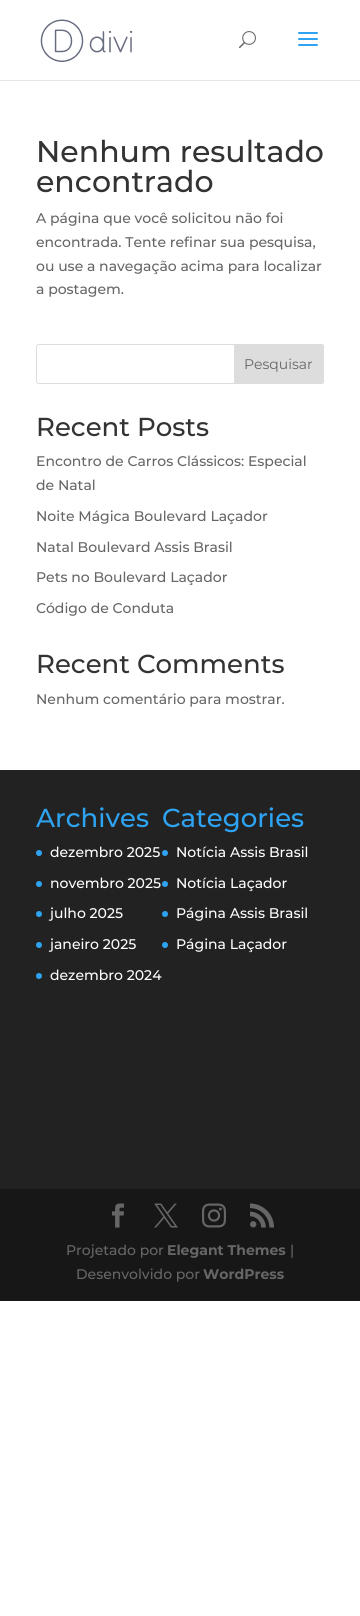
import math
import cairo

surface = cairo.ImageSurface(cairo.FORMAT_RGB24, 360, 1616)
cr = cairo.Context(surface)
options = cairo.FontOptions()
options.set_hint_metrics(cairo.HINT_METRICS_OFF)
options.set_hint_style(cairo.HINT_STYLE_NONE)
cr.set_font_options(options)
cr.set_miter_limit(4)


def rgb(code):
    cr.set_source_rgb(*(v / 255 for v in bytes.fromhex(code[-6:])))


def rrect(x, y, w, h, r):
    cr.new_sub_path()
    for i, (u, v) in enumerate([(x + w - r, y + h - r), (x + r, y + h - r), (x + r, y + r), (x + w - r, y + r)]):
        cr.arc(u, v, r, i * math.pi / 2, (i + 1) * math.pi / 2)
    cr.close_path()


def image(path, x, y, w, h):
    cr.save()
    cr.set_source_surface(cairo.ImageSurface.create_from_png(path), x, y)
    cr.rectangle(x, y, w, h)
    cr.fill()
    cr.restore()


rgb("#ffffff")
cr.paint()
rgb("#e6e6e6")
cr.rectangle(0, 80, 360, 1)
cr.fill()
image("img/1.png", 40, 19, 93, 43)
image("img/2.png", 239, 31, 17, 18)
image("img/3.png", 298, 32, 20, 14)
rrect(36.5, 344.5, 287, 39, 2.5)
rgb("#dddddd")
cr.set_line_width(1)
cr.stroke()
cr.new_path()
cr.move_to(234.5, 344.5)
cr.line_to(321, 344.5)
cr.curve_to(322.5, 344.5, 323.5, 345.5, 323.5, 347)
cr.line_to(323.5, 381)
cr.curve_to(323.5, 382.5, 322.5, 383.5, 321, 383.5)
cr.line_to(234.5, 383.5)
cr.close_path()
cr.fill_preserve()
cr.stroke()
rgb("#222222")
cr.rectangle(0, 770, 360, 419)
cr.fill()
rgb("#2ea3f2")
cr.arc(39, 853, 3, 0, 2 * math.pi)
cr.fill()
cr.arc(39, 884, 3, 0, 2 * math.pi)
cr.fill()
cr.arc(39, 914, 3, 0, 2 * math.pi)
cr.fill()
cr.arc(39, 945, 3, 0, 2 * math.pi)
cr.fill()
cr.arc(39, 976, 3, 0, 2 * math.pi)
cr.fill()
cr.arc(165, 853, 3, 0, 2 * math.pi)
cr.fill()
cr.arc(165, 884, 3, 0, 2 * math.pi)
cr.fill()
cr.arc(165, 914, 3, 0, 2 * math.pi)
cr.fill()
cr.arc(165, 945, 3, 0, 2 * math.pi)
cr.fill()
rgb("#171717")
cr.rectangle(0, 1189, 360, 112)
cr.fill()
image("img/4.png", 112, 1203, 12, 25)
image("img/5.png", 154, 1203, 24, 25)
image("img/6.png", 202, 1203, 24, 25)
image("img/7.png", 250, 1203, 24, 25)
cr.select_font_face("Montserrat Medium")
cr.set_font_size(30)
rgb("#333333")
cr.move_to(36, 162)
cr.show_text("Nenhum resultado")
cr.move_to(36, 192)
cr.show_text("encontrado")
cr.set_font_size(14)
rgb("#666666")
for x, y, s in [
    (36, 223, "A página que você solicitou não foi"),
    (36, 247, "encontrada. Tente refinar sua pesquisa,"),
    (36, 271, "ou use a navegação acima para localizar"),
    (36, 294, "a postagem."),
]:
    cr.move_to(x, y)
    cr.show_text(s)
cr.select_font_face("Montserrat")
cr.move_to(244, 369)
cr.show_text("Pesquisar")
cr.select_font_face("Montserrat Medium")
cr.set_font_size(26)
rgb("#333333")
cr.move_to(36, 436)
cr.show_text("Recent Posts")
cr.set_font_size(14)
rgb("#666666")
for x, y, s in [
    (36, 466, "Encontro de Carros Clássicos: Especial"),
    (36, 490, "de Natal"),
    (36, 521, "Noite Mágica Boulevard Laçador"),
    (36, 552, "Natal Boulevard Assis Brasil"),
    (36, 582, "Pets no Boulevard Laçador"),
    (36, 613, "Código de Conduta"),
]:
    cr.move_to(x, y)
    cr.show_text(s)
cr.set_font_size(26)
rgb("#333333")
cr.move_to(36, 673)
cr.show_text("Recent Comments")
cr.set_font_size(14)
rgb("#666666")
cr.move_to(36, 704)
cr.show_text("Nenhum comentário para mostrar.")
cr.set_font_size(26)
rgb("#2ea3f2")
cr.move_to(36, 827)
cr.show_text("Archives")
cr.set_font_size(14)
rgb("#ffffff")
for x, y, s in [
    (50, 857, "dezembro 2025"),
    (50, 888, "novembro 2025"),
    (50, 918, "julho 2025"),
    (50, 949, "janeiro 2025"),
    (50, 980, "dezembro 2024"),
]:
    cr.move_to(x, y)
    cr.show_text(s)
cr.set_font_size(26)
rgb("#2ea3f2")
cr.move_to(162, 827)
cr.show_text("Categories")
cr.set_font_size(14)
rgb("#ffffff")
for x, y, s in [
    (176, 857, "Notícia Assis Brasil"),
    (176, 888, "Notícia Laçador"),
    (176, 918, "Página Assis Brasil"),
    (176, 949, "Página Laçador"),
]:
    cr.move_to(x, y)
    cr.show_text(s)
rgb("#666666")
cr.move_to(66, 1255)
cr.show_text("Projetado por")
cr.select_font_face("Montserrat", cairo.FONT_SLANT_NORMAL, cairo.FONT_WEIGHT_BOLD)
cr.move_to(167, 1255)
cr.show_text("Elegant Themes")
cr.select_font_face("Montserrat Medium")
cr.move_to(290, 1255)
cr.show_text("|")
cr.move_to(76, 1279)
cr.show_text("Desenvolvido por")
cr.select_font_face("Montserrat", cairo.FONT_SLANT_NORMAL, cairo.FONT_WEIGHT_BOLD)
cr.move_to(203, 1279)
cr.show_text("WordPress")
surface.write_to_png("page.png")
